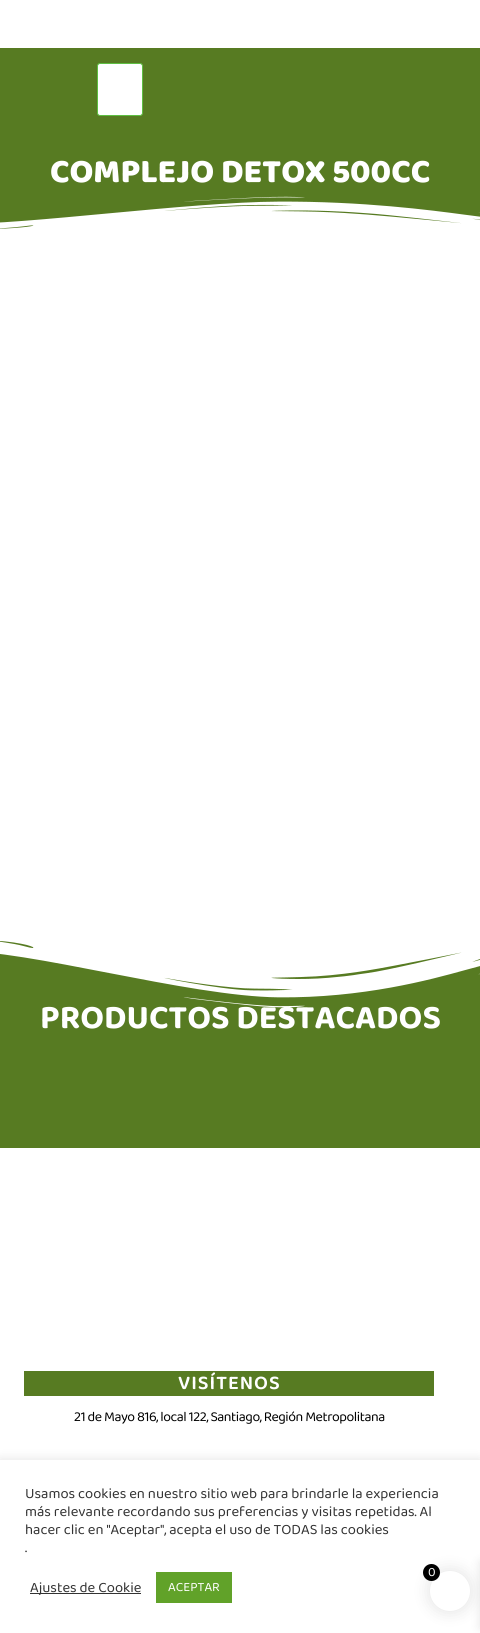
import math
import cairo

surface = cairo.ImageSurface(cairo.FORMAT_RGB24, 480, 1633)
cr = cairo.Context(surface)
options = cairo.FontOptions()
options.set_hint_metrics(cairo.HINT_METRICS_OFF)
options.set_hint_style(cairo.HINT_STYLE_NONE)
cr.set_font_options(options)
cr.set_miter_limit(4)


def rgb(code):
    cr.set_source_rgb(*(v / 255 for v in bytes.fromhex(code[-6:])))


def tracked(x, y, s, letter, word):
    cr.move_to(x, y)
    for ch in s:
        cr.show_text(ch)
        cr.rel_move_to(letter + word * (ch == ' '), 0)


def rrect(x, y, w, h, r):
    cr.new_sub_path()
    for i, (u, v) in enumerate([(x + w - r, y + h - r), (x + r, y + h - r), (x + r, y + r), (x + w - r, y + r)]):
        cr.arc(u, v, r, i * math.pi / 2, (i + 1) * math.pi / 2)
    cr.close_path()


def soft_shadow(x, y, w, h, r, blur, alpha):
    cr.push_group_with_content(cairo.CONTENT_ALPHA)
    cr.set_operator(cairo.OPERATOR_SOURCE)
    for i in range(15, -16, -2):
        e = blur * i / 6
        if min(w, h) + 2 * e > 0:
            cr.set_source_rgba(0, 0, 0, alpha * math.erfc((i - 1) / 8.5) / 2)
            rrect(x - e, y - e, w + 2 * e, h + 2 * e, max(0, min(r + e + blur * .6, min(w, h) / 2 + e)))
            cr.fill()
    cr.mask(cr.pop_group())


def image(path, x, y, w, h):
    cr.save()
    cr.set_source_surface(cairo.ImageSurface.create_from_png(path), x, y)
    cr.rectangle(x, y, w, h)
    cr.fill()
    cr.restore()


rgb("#ffffff")
cr.paint()
rgb("#577b22")
cr.rectangle(0, 48, 480, 181)
cr.fill()
rgb("#ffffff")
rrect(97.5, 63.5, 45, 52, 2.5)
cr.fill_preserve()
rgb("#5dbf42")
cr.set_line_width(1)
cr.stroke()
image("img/1.png", 0, 196, 480, 38)
rgb("#577b22")
cr.rectangle(0, 941, 480, 207)
cr.fill()
image("img/2.png", 0, 929, 480, 79)
cr.rectangle(24, 1371, 410, 25)
cr.fill()
rgb("#acabab")
soft_shadow(0, 1459, 480, 173, 0, 5, 0.3)
for x, y, w, h, color in [
    (0, 1460, 480, 173, "#ffffff"),
    (30, 1593, 111, 1, "#333333"),
    (156, 1572, 76, 31, "#61a229"),
]:
    rgb(color)
    cr.rectangle(x, y, w, h)
    cr.fill()
rgb("#000000")
soft_shadow(428, 1569, 44, 44, 22, 7.5, 0.1)
soft_shadow(480, 1562, 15, 66, 0, 5, 0.1)
rgb("#ffffff")
cr.arc(450, 1591, 20, 0, 2 * math.pi)
cr.fill()
rgb("#000000")
cr.arc(431.5, 1572.5, 8.5, 0, 2 * math.pi)
cr.fill()
cr.select_font_face("Baloo 2 ExtraBold")
cr.set_font_size(34)
rgb("#ffffff")
cr.move_to(50, 182)
cr.show_text("COMPLEJO DETOX 500CC")
cr.select_font_face("Baloo 2", cairo.FONT_SLANT_NORMAL, cairo.FONT_WEIGHT_BOLD)
cr.move_to(40, 1028)
cr.show_text("PRODUCTOS DESTACADOS")
cr.select_font_face("Baloo 2 SemiBold")
cr.set_font_size(20)
tracked(178, 1389, "VISÍTENOS", 1, 0)
cr.select_font_face("Baloo 2")
cr.set_font_size(14)
rgb("#000000")
tracked(74, 1421, "21 de Mayo 816, local 122, Santiago, Región Metropolitana", -0.45, 0)
cr.set_font_size(14.7)
rgb("#333333")
for x, y, s in [
    (25, 1498, "Usamos cookies en nuestro sitio web para brindarle la experiencia"),
    (25, 1516, "más relevante recordando sus preferencias y visitas repetidas. Al"),
    (25, 1534, "hacer clic en \"Aceptar\", acepta el uso de TODAS las cookies"),
    (25, 1552, "."),
    (30, 1592, "Ajustes de Cookie"),
]:
    cr.move_to(x, y)
    cr.show_text(s)
cr.set_font_size(13)
rgb("#ffffff")
cr.move_to(168, 1591)
cr.show_text("ACEPTAR")
cr.move_to(428, 1576)
cr.show_text("0")
surface.write_to_png("page.png")
